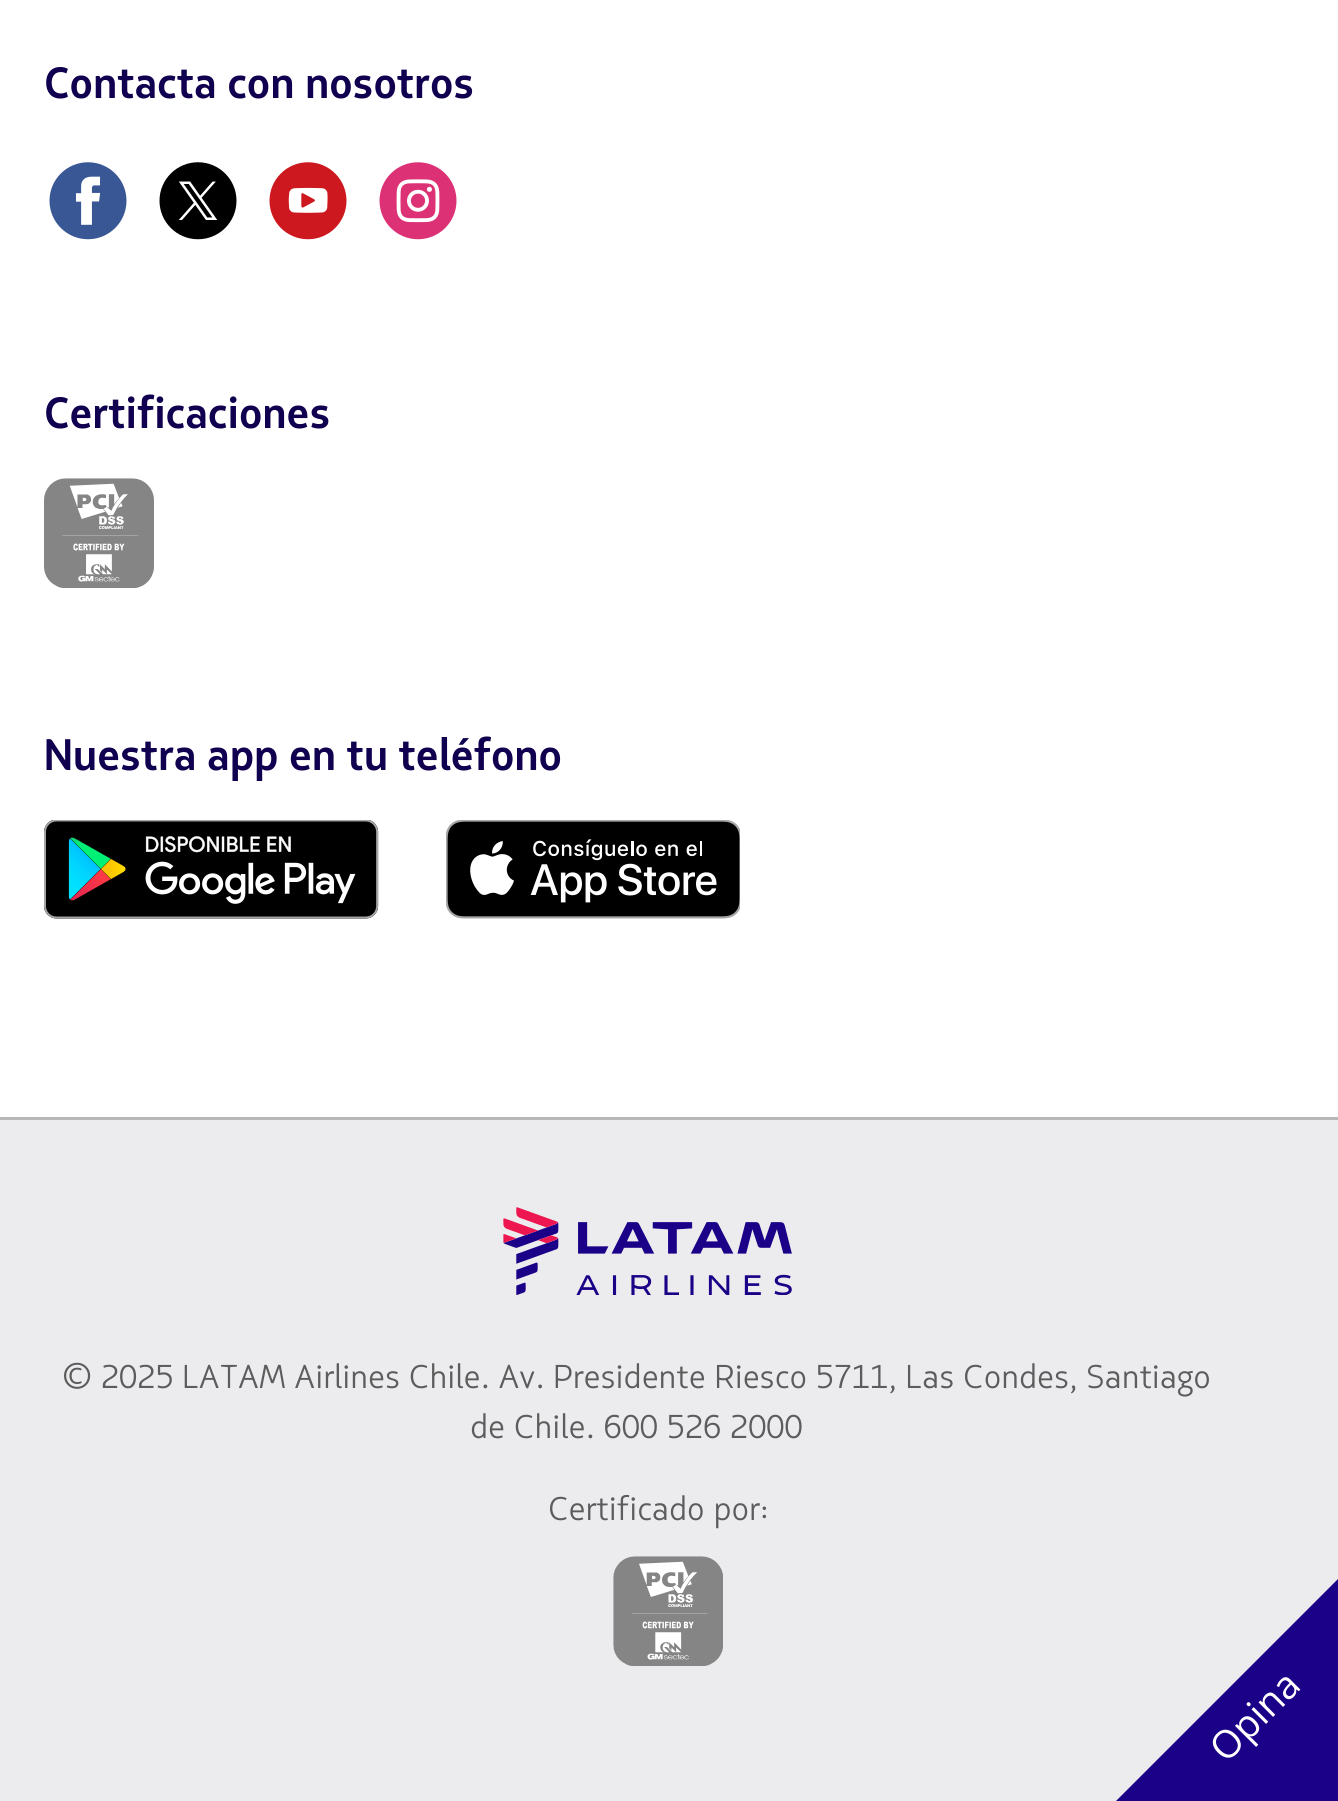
import math
import cairo

surface = cairo.ImageSurface(cairo.FORMAT_RGB24, 1338, 1801)
cr = cairo.Context(surface)
options = cairo.FontOptions()
options.set_hint_metrics(cairo.HINT_METRICS_OFF)
options.set_hint_style(cairo.HINT_STYLE_NONE)
cr.set_font_options(options)
cr.set_miter_limit(4)


def rgb(code):
    cr.set_source_rgb(*(v / 255 for v in bytes.fromhex(code[-6:])))


def image(path, x, y, w, h):
    cr.save()
    cr.set_source_surface(cairo.ImageSurface.create_from_png(path), x, y)
    cr.rectangle(x, y, w, h)
    cr.fill()
    cr.restore()


rgb("#ffffff")
cr.paint()
image("img/1.png", 49, 162, 78, 78)
image("img/2.png", 159, 162, 78, 78)
image("img/3.png", 269, 162, 78, 78)
image("img/4.png", 379, 162, 78, 78)
image("img/5.png", 44, 478, 110, 110)
image("img/6.png", 44, 820, 335, 99)
image("img/7.png", 446, 820, 294, 99)
rgb("#ececee")
cr.rectangle(0, 1120, 1338, 681)
cr.fill()
rgb("#b8b8b8")
cr.rectangle(0, 1117, 1338, 3)
cr.fill()
image("img/8.png", 503, 1207, 289, 88)
image("img/9.png", 613, 1556, 110, 110)
rgb("#1b0088")
cr.new_path()
cr.move_to(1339, 1801)
cr.line_to(1116, 1801)
cr.line_to(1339, 1578)
cr.close_path()
cr.fill()
cr.select_font_face("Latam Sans", cairo.FONT_SLANT_NORMAL, cairo.FONT_WEIGHT_BOLD)
cr.set_font_size(44)
rgb("#10004f")
for x, y, s in [
    (44, 98, "Contacta con nosotros"),
    (44, 428, "Certificaciones"),
    (44, 770, "Nuestra app en tu teléfono"),
]:
    cr.move_to(x, y)
    cr.show_text(s)
cr.select_font_face("Latam Sans")
cr.set_font_size(33)
rgb("#5c5c5c")
for x, y, s in [
    (62, 1388, "© 2025 LATAM Airlines Chile. Av. Presidente Riesco 5711, Las Condes, Santiago"),
    (470, 1438, "de Chile. 600 526 2000"),
    (548, 1520, "Certificado por:"),
]:
    cr.move_to(x, y)
    cr.show_text(s)
cr.select_font_face("Open Sans")
cr.set_font_size(38.5)
rgb("#ffffff")
cr.save()
cr.translate(1226, 1764)
cr.rotate(-45 * math.pi / 180)
cr.move_to(0, 0)
cr.show_text("Opina")
cr.restore()
surface.write_to_png("page.png")
